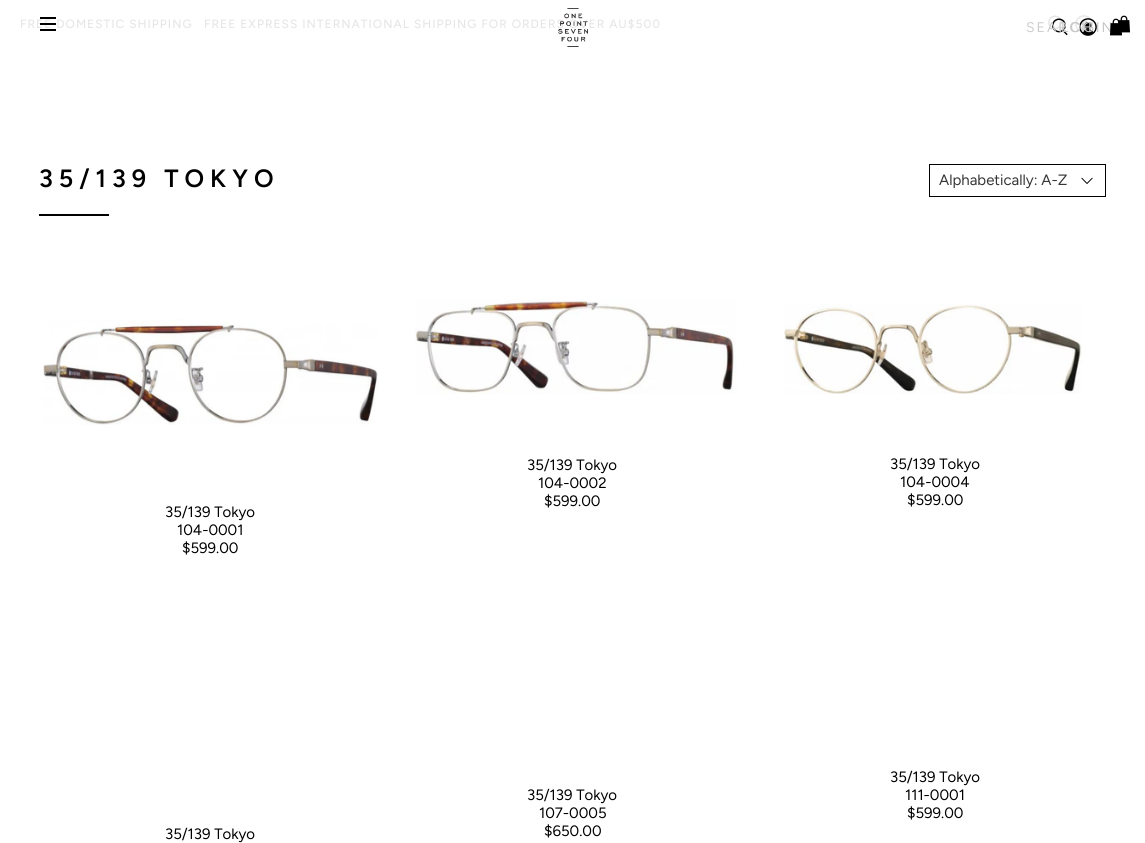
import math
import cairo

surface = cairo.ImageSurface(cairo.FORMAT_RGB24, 1145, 843)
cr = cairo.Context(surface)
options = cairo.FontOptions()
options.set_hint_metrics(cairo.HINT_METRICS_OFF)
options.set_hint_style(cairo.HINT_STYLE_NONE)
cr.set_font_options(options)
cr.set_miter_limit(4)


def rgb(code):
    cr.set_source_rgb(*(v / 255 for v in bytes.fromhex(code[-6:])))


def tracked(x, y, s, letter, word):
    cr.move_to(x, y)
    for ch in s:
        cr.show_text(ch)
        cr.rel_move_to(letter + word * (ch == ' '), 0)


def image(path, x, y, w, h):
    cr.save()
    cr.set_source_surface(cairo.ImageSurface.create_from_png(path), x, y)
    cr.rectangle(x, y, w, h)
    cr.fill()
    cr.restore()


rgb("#ffffff")
cr.paint()
image("img/1.png", 1048, 15, 16, 18)
image("img/2.png", 1075, 15, 18, 18)
rgb("#000000")
cr.rectangle(40, 17, 16, 2)
cr.fill()
cr.rectangle(40, 29, 16, 2)
cr.fill()
image("img/5.png", 1052, 18, 16, 18)
image("img/7.png", 1079, 18, 18, 18)
cr.rectangle(39, 214, 70, 2)
cr.fill()
cr.rectangle(929.5, 164.5, 176, 32)
cr.set_line_width(1)
cr.stroke()
image("img/8.png", 1081, 177, 12, 7)
image("img/9.png", 415, 299, 322, 95)
image("img/10.png", 784, 304, 298, 90)
image("img/11.png", 43, 319, 335, 106)
cr.select_font_face("Figtree Medium")
cr.set_font_size(12)
rgb("#e7e6e6")
tracked(20, 28, "FREE DOMESTIC SHIPPING", 1, 0)
tracked(204, 28, "FREE EXPRESS INTERNATIONAL SHIPPING FOR ORDERS OVER AU$500", 1, 0)
rgb("#000000")
cr.rectangle(40, 23, 16, 2)
cr.fill()
image("img/4.png", 558, 8, 30, 39)
cr.select_font_face("Figtree")
cr.set_font_size(14)
rgb("#cecece")
tracked(1026, 32, "SEARCH", 2, 0)
rgb("#c7c7c7")
tracked(1061, 32, "LOGIN", 2, 0)
image("img/6.png", 1110, 18, 12, 18)
image("img/3.png", 1118, 15, 12, 18)
cr.select_font_face("Figtree SemiBold")
cr.set_font_size(25)
rgb("#000000")
tracked(39, 187, "35/139 TOKYO", 6, 0)
cr.select_font_face("Figtree")
cr.set_font_size(15)
rgb("#363636")
cr.move_to(939, 185)
cr.show_text("Alphabetically: A-Z")
rgb("#000000")
for x, y, s in [
    (527, 470, "35/139 Tokyo"),
    (538, 488, "104-0002"),
    (544, 506, "$599.00"),
    (890, 469, "35/139 Tokyo"),
    (900, 487, "104-0004"),
    (907, 505, "$599.00"),
    (165, 517, "35/139 Tokyo"),
    (177, 535, "104-0001"),
    (182, 553, "$599.00"),
    (165, 839, "35/139 Tokyo"),
    (527, 800, "35/139 Tokyo"),
    (539, 818, "107-0005"),
    (544, 836, "$650.00"),
    (890, 782, "35/139 Tokyo"),
    (905, 800, "111-0001"),
    (907, 818, "$599.00"),
]:
    cr.move_to(x, y)
    cr.show_text(s)
surface.write_to_png("page.png")
